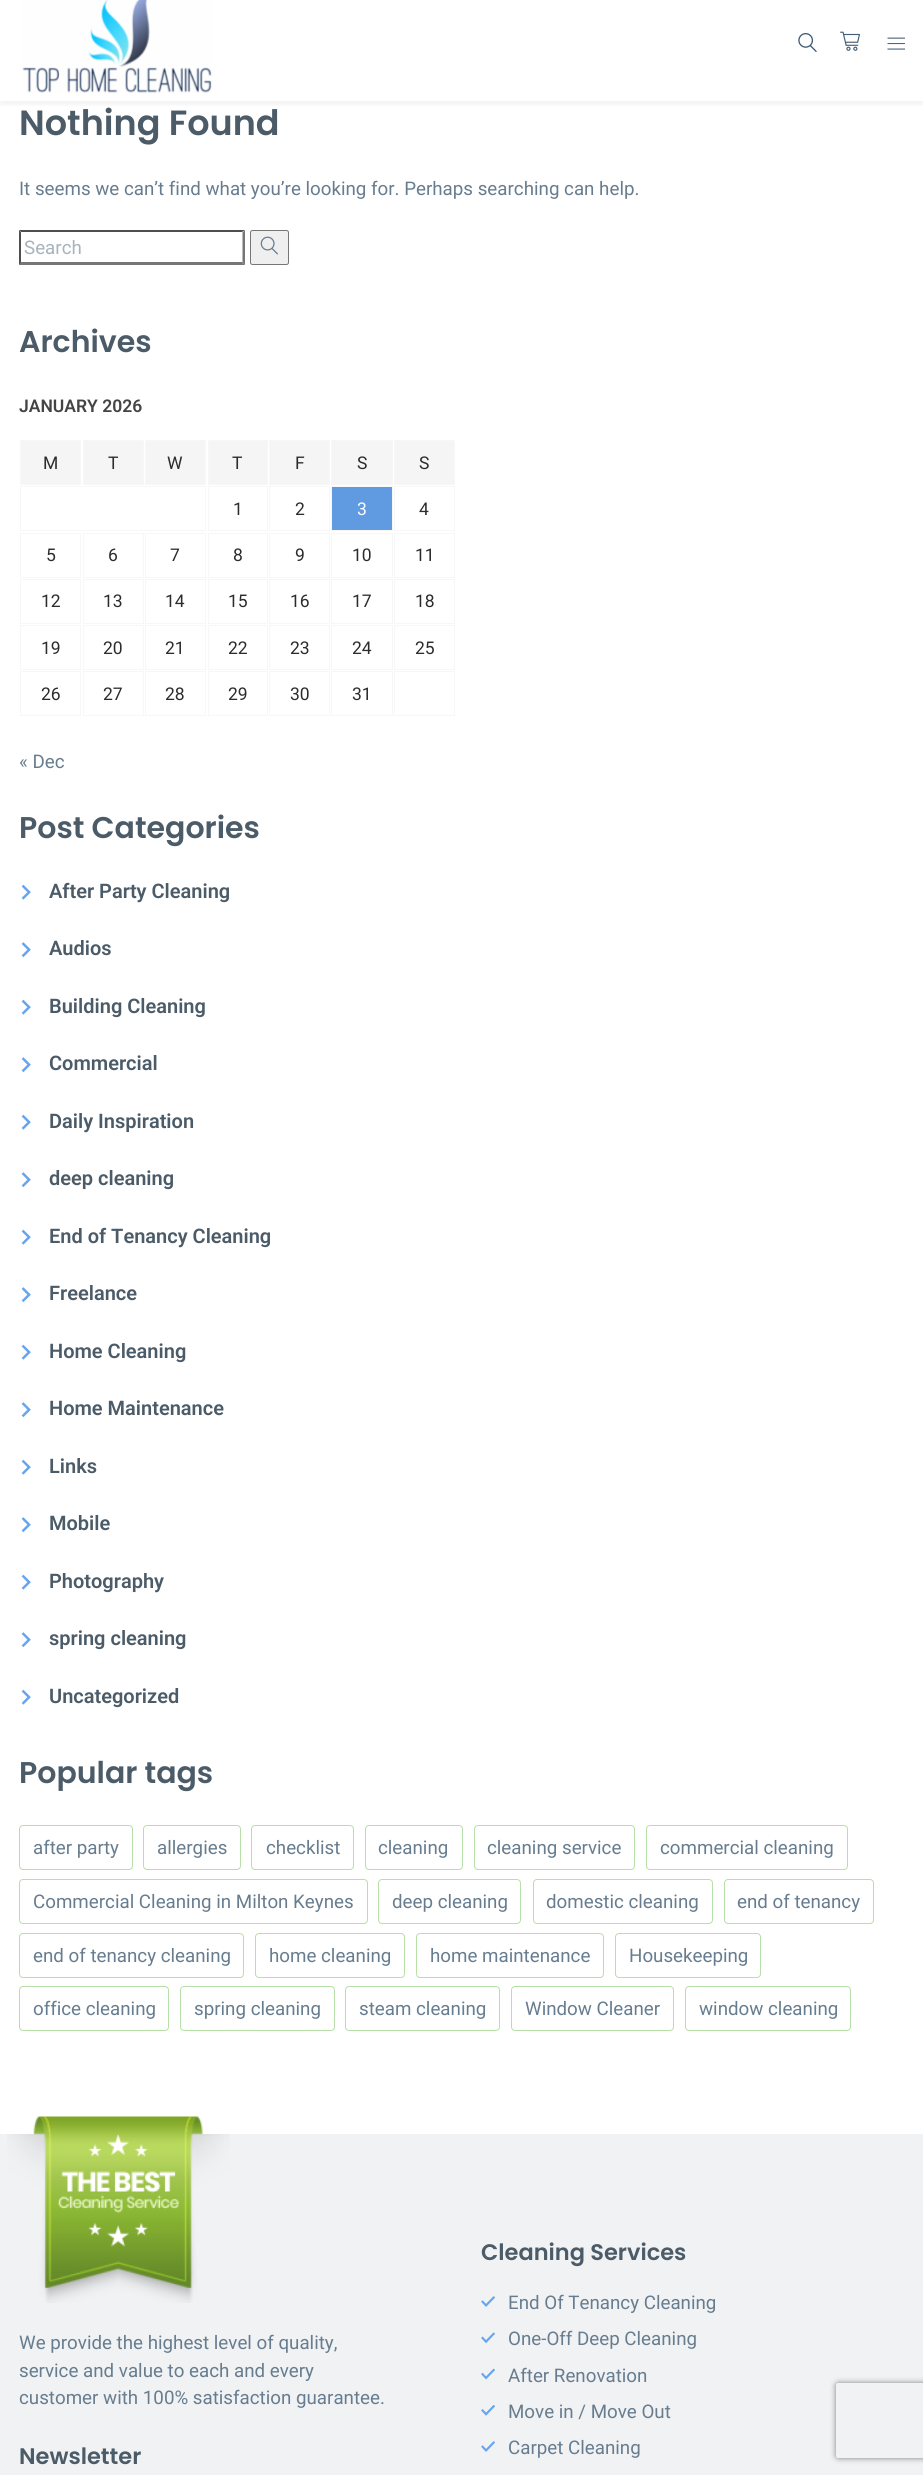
import math
import cairo

surface = cairo.ImageSurface(cairo.FORMAT_RGB24, 923, 2475)
cr = cairo.Context(surface)
options = cairo.FontOptions()
options.set_hint_metrics(cairo.HINT_METRICS_OFF)
options.set_hint_style(cairo.HINT_STYLE_NONE)
cr.set_font_options(options)
cr.set_miter_limit(4)


def rgb(code):
    cr.set_source_rgb(*(v / 255 for v in bytes.fromhex(code[-6:])))


def rrect(x, y, w, h, r):
    cr.new_sub_path()
    for i, (u, v) in enumerate([(x + w - r, y + h - r), (x + r, y + h - r), (x + r, y + r), (x + w - r, y + r)]):
        cr.arc(u, v, r, i * math.pi / 2, (i + 1) * math.pi / 2)
    cr.close_path()


def soft_shadow(x, y, w, h, r, blur, alpha):
    cr.push_group_with_content(cairo.CONTENT_ALPHA)
    cr.set_operator(cairo.OPERATOR_SOURCE)
    for i in range(15, -16, -2):
        e = blur * i / 6
        if min(w, h) + 2 * e > 0:
            cr.set_source_rgba(0, 0, 0, alpha * math.erfc((i - 1) / 8.5) / 2)
            rrect(x - e, y - e, w + 2 * e, h + 2 * e, max(0, min(r + e + blur * .6, min(w, h) / 2 + e)))
            cr.fill()
    cr.mask(cr.pop_group())


def image(path, x, y, w, h):
    cr.save()
    cr.set_source_surface(cairo.ImageSurface.create_from_png(path), x, y)
    cr.rectangle(x, y, w, h)
    cr.fill()
    cr.restore()


rgb("#ffffff")
cr.paint()
cr.save()
cr.rectangle(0, 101, 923, 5)
cr.clip()
rgb("#000000")
soft_shadow(0, -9, 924, 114, 0, 3, 0.05)
cr.restore()
image("img/1.png", 22, 0, 190, 93)
image("img/2.png", 798, 33, 19, 19)
image("img/3.png", 840, 31, 20, 20)
image("img/4.png", 887, 37, 18, 13)
rgb("#4f4f4f")
cr.new_path()
cr.move_to(19, 230)
cr.line_to(245, 230)
cr.line_to(242, 232)
cr.line_to(21, 232)
cr.close_path()
cr.fill()
rgb("#767676")
cr.new_path()
cr.move_to(245, 230)
cr.line_to(245, 265)
cr.line_to(242.5, 262.5)
cr.line_to(242.5, 232.5)
cr.close_path()
cr.fill()
cr.new_path()
cr.move_to(245, 265)
cr.line_to(19, 265)
cr.line_to(21, 262)
cr.line_to(242, 262)
cr.close_path()
cr.fill()
rgb("#4f4f4f")
cr.new_path()
cr.move_to(19, 265)
cr.line_to(19, 230)
cr.line_to(21, 232.5)
cr.line_to(21, 262.5)
cr.close_path()
cr.fill()
rgb("#efefef")
rrect(250.5, 230.5, 38, 34, 2)
cr.fill_preserve()
rgb("#767676")
cr.set_line_width(1)
cr.stroke()
image("img/5.png", 260, 236, 18, 19)
rgb("#f5f5f5")
cr.rectangle(20.5, 440.5, 60, 44)
cr.fill_preserve()
rgb("#f7f7f7")
cr.stroke()
rgb("#f5f5f5")
cr.rectangle(83.5, 440.5, 60, 44)
cr.fill_preserve()
rgb("#f7f7f7")
cr.stroke()
rgb("#f5f5f5")
cr.rectangle(145.5, 440.5, 60, 44)
cr.fill_preserve()
rgb("#f7f7f7")
cr.stroke()
rgb("#f5f5f5")
cr.rectangle(208.5, 440.5, 59, 44)
cr.fill_preserve()
rgb("#f7f7f7")
cr.stroke()
rgb("#f5f5f5")
cr.rectangle(269.5, 440.5, 60, 44)
cr.fill_preserve()
rgb("#f7f7f7")
cr.stroke()
rgb("#f5f5f5")
cr.rectangle(331.5, 440.5, 61, 44)
cr.fill_preserve()
rgb("#f7f7f7")
cr.stroke()
rgb("#f5f5f5")
cr.rectangle(394.5, 440.5, 60, 44)
cr.fill_preserve()
rgb("#f7f7f7")
cr.stroke()
cr.rectangle(20.5, 486.5, 185, 44)
cr.stroke()
cr.rectangle(208.5, 486.5, 59, 44)
cr.stroke()
cr.rectangle(269.5, 486.5, 60, 44)
cr.stroke()
rgb("#609ae0")
cr.rectangle(331.5, 486.5, 61, 44)
cr.fill_preserve()
rgb("#f7f7f7")
cr.stroke()
cr.rectangle(394.5, 486.5, 60, 44)
cr.stroke()
cr.rectangle(20.5, 533.5, 60, 44)
cr.stroke()
cr.rectangle(83.5, 533.5, 60, 44)
cr.stroke()
cr.rectangle(145.5, 533.5, 60, 44)
cr.stroke()
cr.rectangle(208.5, 533.5, 59, 44)
cr.stroke()
cr.rectangle(269.5, 533.5, 60, 44)
cr.stroke()
cr.rectangle(331.5, 533.5, 61, 44)
cr.stroke()
cr.rectangle(394.5, 533.5, 60, 44)
cr.stroke()
cr.rectangle(20.5, 579.5, 60, 44)
cr.stroke()
cr.rectangle(83.5, 579.5, 60, 44)
cr.stroke()
cr.rectangle(145.5, 579.5, 60, 44)
cr.stroke()
cr.rectangle(208.5, 579.5, 59, 44)
cr.stroke()
cr.rectangle(269.5, 579.5, 60, 44)
cr.stroke()
cr.rectangle(331.5, 579.5, 61, 44)
cr.stroke()
cr.rectangle(394.5, 579.5, 60, 44)
cr.stroke()
cr.rectangle(20.5, 625.5, 60, 44)
cr.stroke()
cr.rectangle(83.5, 625.5, 60, 44)
cr.stroke()
cr.rectangle(145.5, 625.5, 60, 44)
cr.stroke()
cr.rectangle(208.5, 625.5, 59, 44)
cr.stroke()
cr.rectangle(269.5, 625.5, 60, 44)
cr.stroke()
cr.rectangle(331.5, 625.5, 61, 44)
cr.stroke()
cr.rectangle(394.5, 625.5, 60, 44)
cr.stroke()
cr.rectangle(20.5, 671.5, 60, 44)
cr.stroke()
cr.rectangle(83.5, 671.5, 60, 44)
cr.stroke()
cr.rectangle(145.5, 671.5, 60, 44)
cr.stroke()
cr.rectangle(208.5, 671.5, 59, 44)
cr.stroke()
cr.rectangle(269.5, 671.5, 60, 44)
cr.stroke()
cr.rectangle(331.5, 671.5, 61, 44)
cr.stroke()
cr.rectangle(394.5, 671.5, 60, 44)
cr.stroke()
image("img/6.png", 21, 884, 10, 16)
image("img/7.png", 21, 942, 10, 16)
image("img/6.png", 21, 999, 10, 16)
image("img/7.png", 21, 1057, 10, 16)
image("img/6.png", 21, 1114, 10, 16)
image("img/7.png", 21, 1172, 10, 16)
image("img/6.png", 21, 1229, 10, 16)
image("img/7.png", 21, 1287, 10, 16)
image("img/6.png", 21, 1344, 10, 16)
image("img/7.png", 21, 1402, 10, 16)
image("img/6.png", 21, 1459, 10, 16)
image("img/7.png", 21, 1517, 10, 16)
image("img/6.png", 21, 1574, 10, 16)
image("img/7.png", 21, 1632, 10, 16)
image("img/6.png", 21, 1689, 10, 16)
rrect(19.5, 1825.5, 113, 44, 3.5)
rgb("#b7dfa8")
cr.stroke()
rrect(143.5, 1825.5, 97, 44, 3.5)
cr.stroke()
rrect(251.5, 1825.5, 102, 44, 3.5)
cr.stroke()
rrect(365.5, 1825.5, 97, 44, 3.5)
cr.stroke()
rrect(474.5, 1825.5, 160, 44, 3.5)
cr.stroke()
rrect(646.5, 1825.5, 201, 44, 3.5)
cr.stroke()
rrect(19.5, 1879.5, 348, 44, 3.5)
cr.stroke()
rrect(378.5, 1879.5, 142, 44, 3.5)
cr.stroke()
rrect(533.5, 1879.5, 179, 44, 3.5)
cr.stroke()
rrect(724.5, 1879.5, 149, 44, 3.5)
cr.stroke()
rrect(19.5, 1933.5, 224, 44, 3.5)
cr.stroke()
rrect(255.5, 1933.5, 149, 44, 3.5)
cr.stroke()
rrect(416.5, 1933.5, 187, 44, 3.5)
cr.stroke()
rrect(615.5, 1933.5, 145, 44, 3.5)
cr.stroke()
rrect(19.5, 1986.5, 149, 44, 3.5)
cr.stroke()
rrect(180.5, 1986.5, 154, 44, 3.5)
cr.stroke()
rrect(345.5, 1986.5, 154, 44, 3.5)
cr.stroke()
rrect(511.5, 1986.5, 162, 44, 3.5)
cr.stroke()
rrect(685.5, 1986.5, 165, 44, 3.5)
cr.stroke()
rgb("#f1f2f3")
cr.rectangle(0, 2134, 923, 341)
cr.fill()
image("img/8.png", 7, 2116, 223, 187)
image("img/9.png", 481, 2296, 14, 11)
image("img/10.png", 481, 2332, 14, 11)
image("img/11.png", 481, 2368, 14, 12)
image("img/12.png", 481, 2405, 14, 11)
image("img/9.png", 481, 2441, 14, 11)
cr.save()
cr.set_fill_rule(cairo.FILL_RULE_EVEN_ODD)
cr.new_path()
cr.move_to(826, 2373)
cr.line_to(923, 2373)
cr.line_to(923, 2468)
cr.line_to(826, 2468)
cr.close_path()
cr.move_to(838.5, 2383)
cr.line_to(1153.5, 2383)
cr.curve_to(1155, 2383, 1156, 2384, 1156, 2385.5)
cr.line_to(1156, 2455.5)
cr.curve_to(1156, 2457, 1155, 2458, 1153.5, 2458)
cr.line_to(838.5, 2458)
cr.curve_to(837, 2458, 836, 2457, 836, 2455.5)
cr.line_to(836, 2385.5)
cr.curve_to(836, 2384, 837, 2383, 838.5, 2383)
cr.close_path()
cr.clip()
rgb("#808080")
soft_shadow(836, 2383, 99, 75, 2.5, 3, 1)
cr.restore()
cr.select_font_face("Poppins SemiBold")
cr.set_font_size(35)
rgb("#4b5b68")
cr.move_to(19, 135)
cr.show_text("Nothing Found")
cr.select_font_face("Roboto")
cr.set_font_size(18.75)
rgb("#677d8f")
cr.move_to(19, 195)
cr.show_text("It seems we can’t find what you’re looking for. Perhaps searching can help.")
rgb("#a7b3bd")
cr.move_to(24, 254)
cr.show_text("Search")
cr.select_font_face("Poppins SemiBold")
cr.set_font_size(30)
rgb("#4b5b68")
cr.move_to(19, 352)
cr.show_text("Archives")
cr.select_font_face("Roboto SemiBold")
cr.set_font_size(17.5)
rgb("#444444")
cr.move_to(19, 412)
cr.show_text("JANUARY 2026")
cr.select_font_face("Roboto")
rgb("#2c2c2c")
for x, y, s in [
    (43, 469, "M"),
    (108, 469, "T"),
    (167, 469, "W"),
    (232, 469, "T"),
    (295, 469, "F"),
    (357, 469, "S"),
    (419, 469, "S"),
    (233, 515, "1"),
    (295, 515, "2"),
]:
    cr.move_to(x, y)
    cr.show_text(s)
rgb("#ffffff")
cr.move_to(357, 515)
cr.show_text("3")
rgb("#2c2c2c")
for x, y, s in [
    (419, 515, "4"),
    (46, 561, "5"),
    (108, 561, "6"),
    (170, 561, "7"),
    (233, 561, "8"),
    (295, 561, "9"),
    (352, 561, "10"),
    (415, 561, "11"),
    (41, 607, "12"),
    (103, 607, "13"),
    (165, 607, "14"),
    (228, 607, "15"),
    (290, 607, "16"),
    (352, 607, "17"),
    (415, 607, "18"),
    (41, 654, "19"),
    (103, 654, "20"),
    (165, 654, "21"),
    (228, 654, "22"),
    (290, 654, "23"),
    (352, 654, "24"),
    (415, 654, "25"),
    (41, 700, "26"),
    (103, 700, "27"),
    (165, 700, "28"),
    (228, 700, "29"),
    (290, 700, "30"),
    (352, 700, "31"),
]:
    cr.move_to(x, y)
    cr.show_text(s)
cr.set_font_size(18.75)
rgb("#677d8f")
cr.move_to(19, 768)
cr.show_text("« Dec")
cr.select_font_face("Poppins SemiBold")
cr.set_font_size(30)
rgb("#4b5b68")
cr.move_to(19, 838)
cr.show_text("Post Categories")
cr.select_font_face("Roboto SemiBold")
cr.set_font_size(20)
for x, y, s in [
    (49, 898, "After Party Cleaning"),
    (49, 955, "Audios"),
    (49, 1013, "Building Cleaning"),
    (49, 1070, "Commercial"),
    (49, 1128, "Daily Inspiration"),
    (49, 1185, "deep cleaning"),
    (49, 1243, "End of Tenancy Cleaning"),
    (49, 1300, "Freelance"),
    (49, 1358, "Home Cleaning"),
    (49, 1415, "Home Maintenance"),
    (49, 1473, "Links"),
    (49, 1530, "Mobile"),
    (49, 1588, "Photography"),
    (49, 1645, "spring cleaning"),
    (49, 1703, "Uncategorized"),
]:
    cr.move_to(x, y)
    cr.show_text(s)
cr.select_font_face("Poppins SemiBold")
cr.set_font_size(30)
cr.move_to(19, 1783)
cr.show_text("Popular tags")
cr.select_font_face("Roboto")
cr.set_font_size(18.75)
rgb("#677d8f")
for x, y, s in [
    (33, 1854, "after party"),
    (157, 1854, "allergies"),
    (266, 1854, "checklist"),
    (378, 1854, "cleaning"),
    (487, 1854, "cleaning service"),
    (660, 1854, "commercial cleaning"),
    (33, 1908, "Commercial Cleaning in Milton Keynes"),
    (392, 1908, "deep cleaning"),
    (546, 1908, "domestic cleaning"),
    (737, 1908, "end of tenancy"),
    (33, 1962, "end of tenancy cleaning"),
    (269, 1962, "home cleaning"),
    (430, 1962, "home maintenance"),
    (629, 1962, "Housekeeping"),
    (33, 2015, "office cleaning"),
    (194, 2015, "spring cleaning"),
    (359, 2015, "steam cleaning"),
    (525, 2015, "Window Cleaner"),
    (699, 2015, "window cleaning"),
    (19, 2349, "We provide the highest level of quality,"),
    (19, 2377, "service and value to each and every"),
    (19, 2404, "customer with 100% satisfaction guarantee."),
]:
    cr.move_to(x, y)
    cr.show_text(s)
cr.select_font_face("Poppins SemiBold")
cr.set_font_size(22.5)
rgb("#4b5b68")
cr.move_to(19, 2464)
cr.show_text("Newsletter")
cr.move_to(481, 2260)
cr.show_text("Cleaning Services")
cr.select_font_face("Roboto")
cr.set_font_size(18.75)
rgb("#677d8f")
for x, y, s in [
    (508, 2309, "End Of Tenancy Cleaning"),
    (508, 2345, "One-Off Deep Cleaning"),
    (508, 2382, "After Renovation"),
    (508, 2418, "Move in / Move Out"),
    (508, 2454, "Carpet Cleaning"),
]:
    cr.move_to(x, y)
    cr.show_text(s)
surface.write_to_png("page.png")
